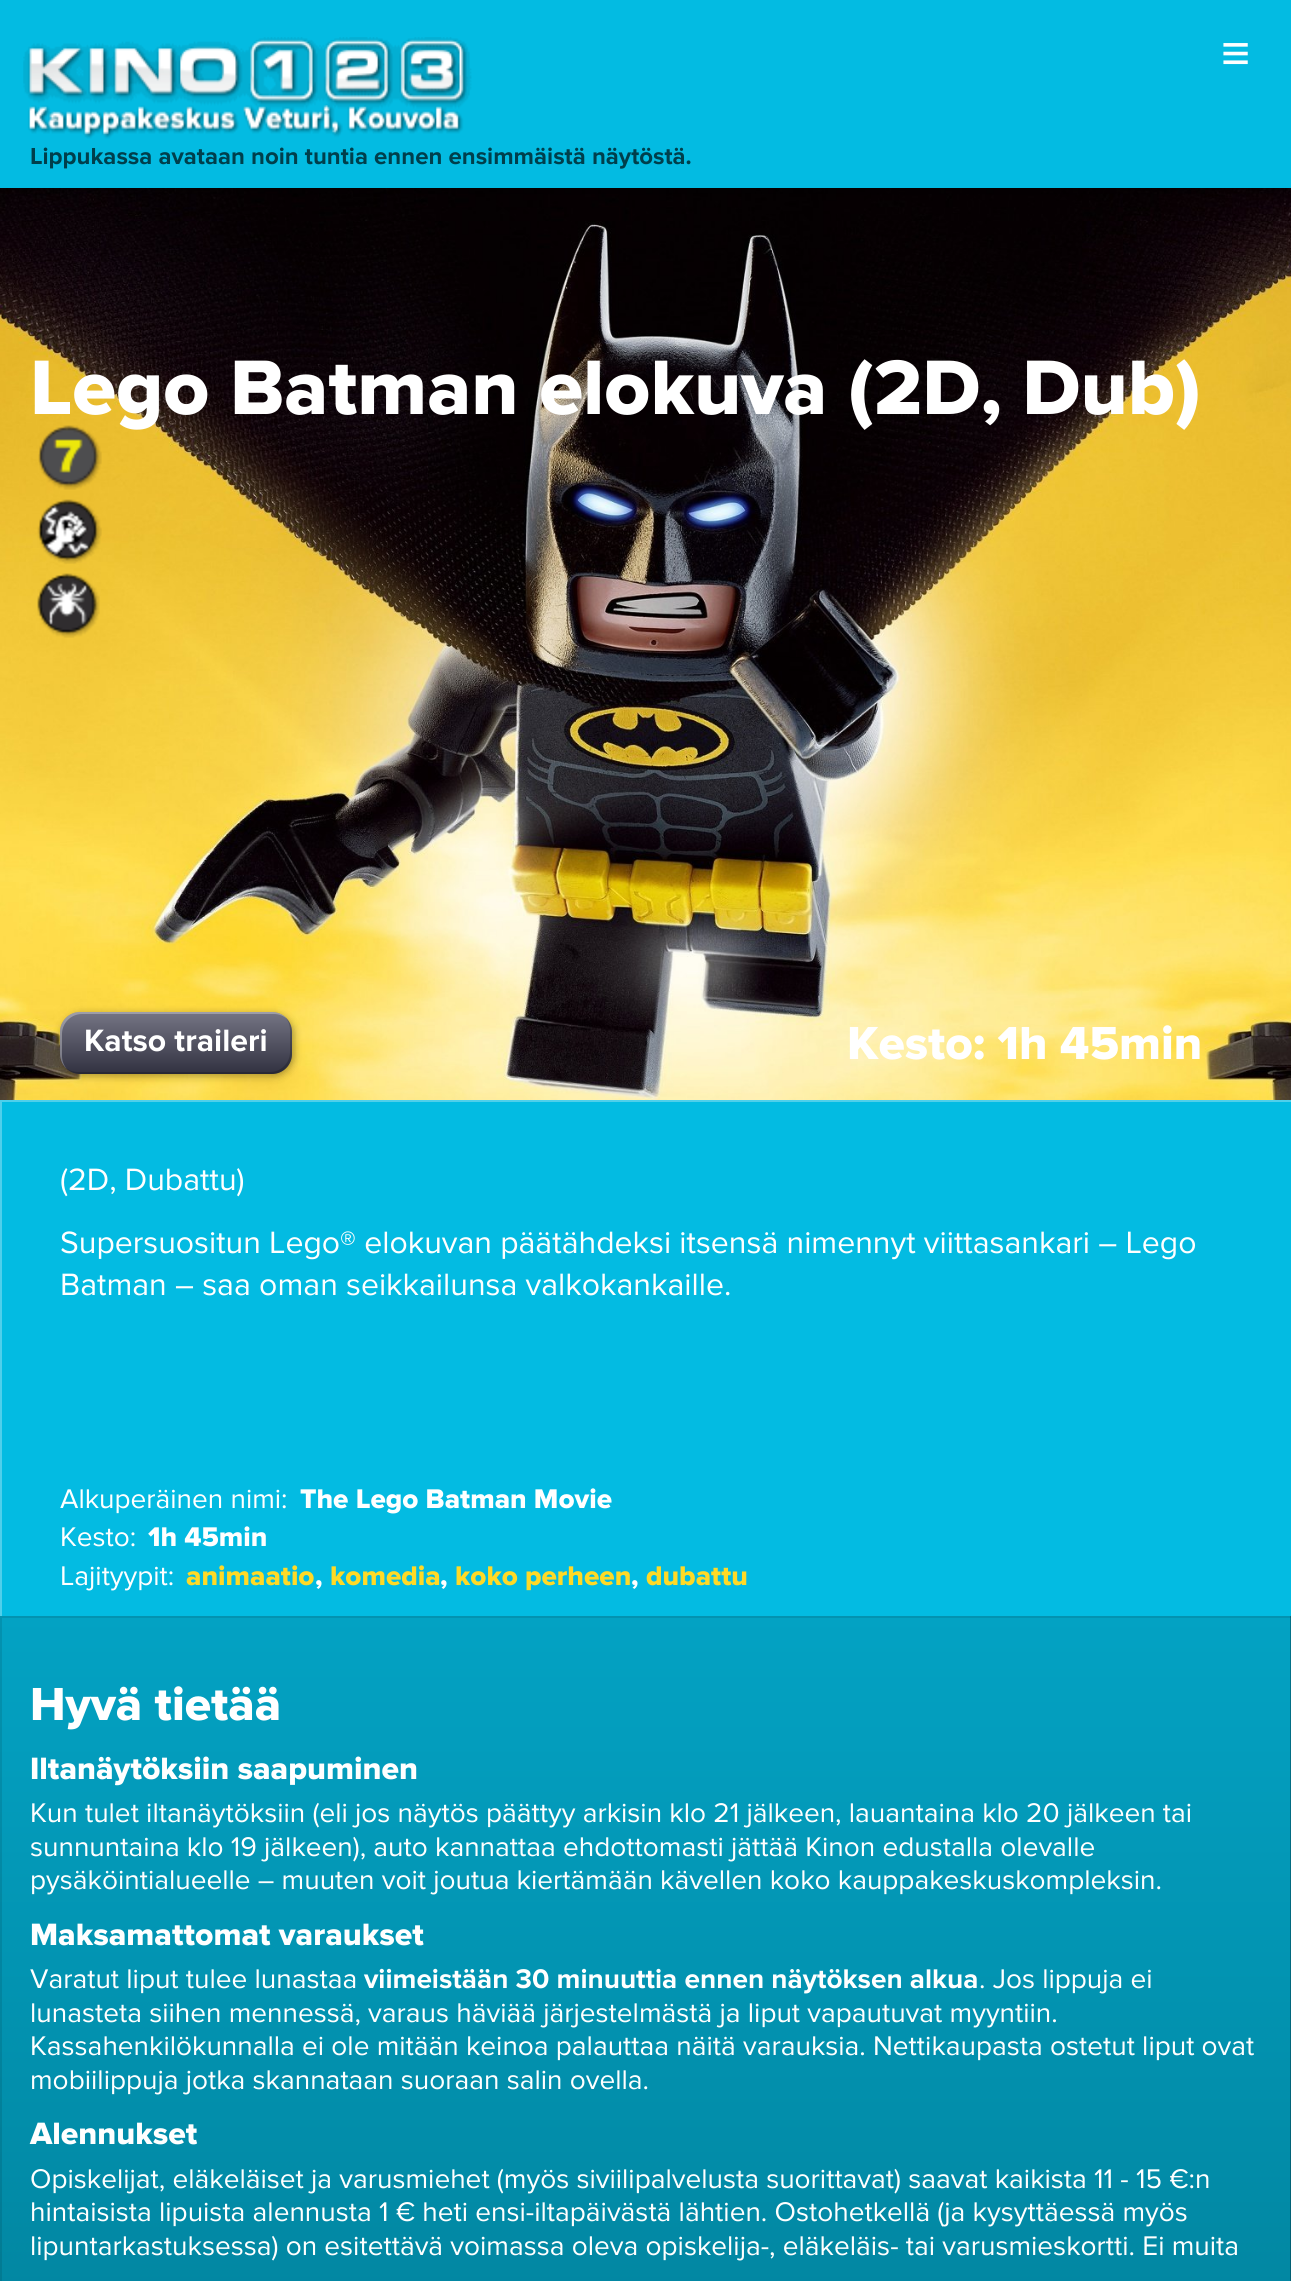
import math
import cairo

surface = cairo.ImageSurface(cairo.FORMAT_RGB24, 1291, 2281)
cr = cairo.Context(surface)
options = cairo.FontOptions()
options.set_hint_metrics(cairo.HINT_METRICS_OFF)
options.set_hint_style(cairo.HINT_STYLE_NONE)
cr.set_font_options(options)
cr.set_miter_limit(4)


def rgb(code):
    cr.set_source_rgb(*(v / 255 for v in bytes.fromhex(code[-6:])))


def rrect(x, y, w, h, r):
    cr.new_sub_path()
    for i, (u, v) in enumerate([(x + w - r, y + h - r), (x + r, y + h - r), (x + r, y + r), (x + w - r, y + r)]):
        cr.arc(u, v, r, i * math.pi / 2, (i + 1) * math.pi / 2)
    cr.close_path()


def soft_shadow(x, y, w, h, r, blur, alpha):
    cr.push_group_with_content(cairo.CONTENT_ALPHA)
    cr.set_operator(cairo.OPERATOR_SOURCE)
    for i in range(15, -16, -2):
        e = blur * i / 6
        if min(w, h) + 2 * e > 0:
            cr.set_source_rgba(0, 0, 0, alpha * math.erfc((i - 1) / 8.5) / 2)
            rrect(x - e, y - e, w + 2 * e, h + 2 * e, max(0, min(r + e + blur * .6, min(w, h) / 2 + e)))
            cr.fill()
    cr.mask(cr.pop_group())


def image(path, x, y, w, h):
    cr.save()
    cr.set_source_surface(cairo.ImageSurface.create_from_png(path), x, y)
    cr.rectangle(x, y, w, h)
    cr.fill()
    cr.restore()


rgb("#03bbe2")
cr.paint()
image("img/2.png", 0, 188, 1291, 912)
rgb("#000000")
soft_shadow(2, 2, 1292, 188, 0, 5, 0.5)
rgb("#03bbe2")
cr.rectangle(0, 0, 1291, 188)
cr.fill()
image("img/1.png", 23, 37, 449, 102)
image("img/3.png", 38, 425, 64, 65)
image("img/4.png", 37, 499, 65, 65)
image("img/5.png", 37, 573, 63, 65)
rgb("#000000")
soft_shadow(62, 1014, 232, 62, 20, 4, 0.35)
gradient = cairo.LinearGradient(176, 1012, 176, 1074)
gradient.add_color_stop_rgba(0, 0.459, 0.459, 0.518, 1)
gradient.add_color_stop_rgba(1, 0.192, 0.192, 0.251, 1)
cr.set_source(gradient)
rrect(60, 1012, 232, 62, 20)
cr.fill()
cr.set_source_rgba(1, 1, 1, 0.3)
cr.new_path()
cr.move_to(82, 1014)
cr.line_to(274, 1014)
cr.curve_to(279, 1014, 284, 1016, 287, 1019)
cr.curve_to(284, 1015, 278, 1012, 272, 1012)
cr.line_to(80, 1012)
cr.curve_to(69, 1012, 60, 1021, 60, 1032)
cr.line_to(60, 1054)
cr.curve_to(60, 1060, 63, 1066, 67, 1069)
cr.curve_to(64, 1066, 62, 1061, 62, 1056)
cr.line_to(62, 1034)
cr.curve_to(62, 1023, 71, 1014, 82, 1014)
cr.close_path()
cr.fill()
cr.set_source_rgba(0, 0, 0, 0.2)
cr.new_path()
cr.move_to(65, 1067)
cr.curve_to(68, 1071, 74, 1074, 80, 1074)
cr.line_to(272, 1074)
cr.curve_to(283, 1074, 292, 1065, 292, 1054)
cr.line_to(292, 1032)
cr.curve_to(292, 1026, 289, 1020, 285, 1017)
cr.curve_to(288, 1020, 290, 1025, 290, 1030)
cr.line_to(290, 1052)
cr.curve_to(290, 1063, 281, 1072, 270, 1072)
cr.line_to(78, 1072)
cr.curve_to(73, 1072, 68, 1070, 65, 1067)
cr.close_path()
cr.fill()
cr.save()
cr.rectangle(0, 1100, 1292, 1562)
cr.clip()
rgb("#4fcfeb")
cr.set_fill_rule(cairo.FILL_RULE_EVEN_ODD)
cr.new_path()
cr.move_to(-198, 902)
cr.line_to(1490, 902)
cr.line_to(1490, 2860)
cr.line_to(-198, 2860)
cr.close_path()
cr.move_to(2, 1102)
cr.line_to(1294, 1102)
cr.line_to(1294, 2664)
cr.line_to(2, 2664)
cr.close_path()
cr.fill()
cr.restore()
gradient = cairo.LinearGradient(646, 1616, 646, 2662)
gradient.add_color_stop_rgba(0, 0.012, 0.635, 0.765, 1)
gradient.add_color_stop_rgba(1, 0.004, 0.471, 0.565, 1)
cr.set_source(gradient)
cr.rectangle(0, 1616, 1291, 665)
cr.fill()
cr.save()
cr.rectangle(0, 1616, 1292, 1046)
cr.clip()
cr.set_source_rgba(0, 0, 0, 0.1)
cr.set_fill_rule(cairo.FILL_RULE_EVEN_ODD)
cr.new_path()
cr.move_to(-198, 1418)
cr.line_to(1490, 1418)
cr.line_to(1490, 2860)
cr.line_to(-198, 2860)
cr.close_path()
cr.move_to(2, 1618)
cr.line_to(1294, 1618)
cr.line_to(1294, 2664)
cr.line_to(2, 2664)
cr.close_path()
cr.fill()
cr.set_source_rgba(0, 0, 0, 0.3)
cr.new_path()
cr.move_to(-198, 1418)
cr.line_to(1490, 1418)
cr.line_to(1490, 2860)
cr.line_to(-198, 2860)
cr.close_path()
cr.move_to(-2, 1614)
cr.line_to(1290, 1614)
cr.line_to(1290, 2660)
cr.line_to(-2, 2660)
cr.close_path()
cr.fill()
cr.restore()
cr.select_font_face("Liberation Sans")
cr.set_font_size(50)
rgb("#ffffff")
cr.move_to(1221, 70)
cr.show_text("≡")
cr.select_font_face("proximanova", cairo.FONT_SLANT_NORMAL, cairo.FONT_WEIGHT_BOLD)
cr.set_font_size(24)
rgb("#003f4c")
cr.move_to(30, 164)
cr.show_text("Lippukassa avataan noin tuntia ennen ensimmäistä näytöstä.")
cr.select_font_face("proximanova ExtraBold")
cr.set_font_size(80)
rgb("#ffffff")
cr.move_to(30, 414)
cr.show_text("Lego Batman elokuva (2D, Dub)")
cr.select_font_face("proximanova", cairo.FONT_SLANT_NORMAL, cairo.FONT_WEIGHT_BOLD)
cr.set_font_size(32)
cr.move_to(84, 1051)
cr.show_text("Katso traileri")
cr.select_font_face("proximanova ExtraBold")
cr.set_font_size(48)
cr.move_to(847, 1059)
cr.show_text("Kesto: 1h 45min")
cr.select_font_face("proximanova")
cr.set_font_size(32)
for x, y, s in [
    (60, 1190, "(2D, Dubattu)"),
    (60, 1253, "Supersuositun Lego® elokuvan päätähdeksi itsensä nimennyt viittasankari – Lego"),
    (60, 1295, "Batman – saa oman seikkailunsa valkokankaille."),
]:
    cr.move_to(x, y)
    cr.show_text(s)
cr.set_font_size(28)
cr.move_to(60, 1508)
cr.show_text("Alkuperäinen nimi:")
cr.select_font_face("proximanova ExtraBold")
cr.move_to(300, 1508)
cr.show_text("The Lego Batman Movie")
cr.select_font_face("proximanova")
cr.move_to(60, 1546)
cr.show_text("Kesto:")
cr.select_font_face("proximanova ExtraBold")
cr.move_to(148, 1546)
cr.show_text("1h 45min")
cr.select_font_face("proximanova")
cr.move_to(60, 1585)
cr.show_text("Lajityypit:")
cr.select_font_face("proximanova ExtraBold")
rgb("#ffda26")
cr.move_to(186, 1585)
cr.show_text("animaatio")
rgb("#ffffff")
cr.move_to(315, 1585)
cr.show_text(",")
rgb("#ffda26")
cr.move_to(330, 1585)
cr.show_text("komedia")
rgb("#ffffff")
cr.move_to(440, 1585)
cr.show_text(",")
rgb("#ffda26")
cr.move_to(455, 1585)
cr.show_text("koko perheen")
rgb("#ffffff")
cr.move_to(631, 1585)
cr.show_text(",")
rgb("#ffda26")
cr.move_to(646, 1585)
cr.show_text("dubattu")
cr.set_font_size(48)
rgb("#ffffff")
cr.move_to(30, 1720)
cr.show_text("Hyvä tietää")
cr.set_font_size(32)
cr.move_to(30, 1779)
cr.show_text("Iltanäytöksiin saapuminen")
cr.select_font_face("proximanova")
cr.set_font_size(28)
for x, y, s in [
    (30, 1822, "Kun tulet iltanäytöksiin (eli jos näytös päättyy arkisin klo 21 jälkeen, lauantaina klo 20 jälkeen tai"),
    (30, 1856, "sunnuntaina klo 19 jälkeen), auto kannattaa ehdottomasti jättää Kinon edustalla olevalle"),
    (30, 1889, "pysäköintialueelle – muuten voit joutua kiertämään kävellen koko kauppakeskuskompleksin."),
]:
    cr.move_to(x, y)
    cr.show_text(s)
cr.select_font_face("proximanova ExtraBold")
cr.set_font_size(32)
cr.move_to(30, 1945)
cr.show_text("Maksamattomat varaukset")
cr.select_font_face("proximanova")
cr.set_font_size(28)
cr.move_to(30, 1988)
cr.show_text("Varatut liput tulee lunastaa")
cr.select_font_face("proximanova", cairo.FONT_SLANT_NORMAL, cairo.FONT_WEIGHT_BOLD)
cr.move_to(364, 1988)
cr.show_text("viimeistään 30 minuuttia ennen näytöksen alkua")
cr.select_font_face("proximanova")
for x, y, s in [
    (979, 1988, ". Jos lippuja ei"),
    (30, 2022, "lunasteta siihen mennessä, varaus häviää järjestelmästä ja liput vapautuvat myyntiin."),
    (30, 2055, "Kassahenkilökunnalla ei ole mitään keinoa palauttaa näitä varauksia. Nettikaupasta ostetut liput ovat"),
    (30, 2089, "mobiilippuja jotka skannataan suoraan salin ovella."),
]:
    cr.move_to(x, y)
    cr.show_text(s)
cr.select_font_face("proximanova ExtraBold")
cr.set_font_size(32)
cr.move_to(30, 2144)
cr.show_text("Alennukset")
cr.select_font_face("proximanova")
cr.set_font_size(28)
for x, y, s in [
    (30, 2188, "Opiskelijat, eläkeläiset ja varusmiehet (myös siviilipalvelusta suorittavat) saavat kaikista 11 - 15 €:n"),
    (30, 2221, "hintaisista lipuista alennusta 1 € heti ensi-iltapäivästä lähtien. Ostohetkellä (ja kysyttäessä myös"),
    (30, 2255, "lipuntarkastuksessa) on esitettävä voimassa oleva opiskelija-, eläkeläis- tai varusmieskortti. Ei muita"),
]:
    cr.move_to(x, y)
    cr.show_text(s)
surface.write_to_png("page.png")
